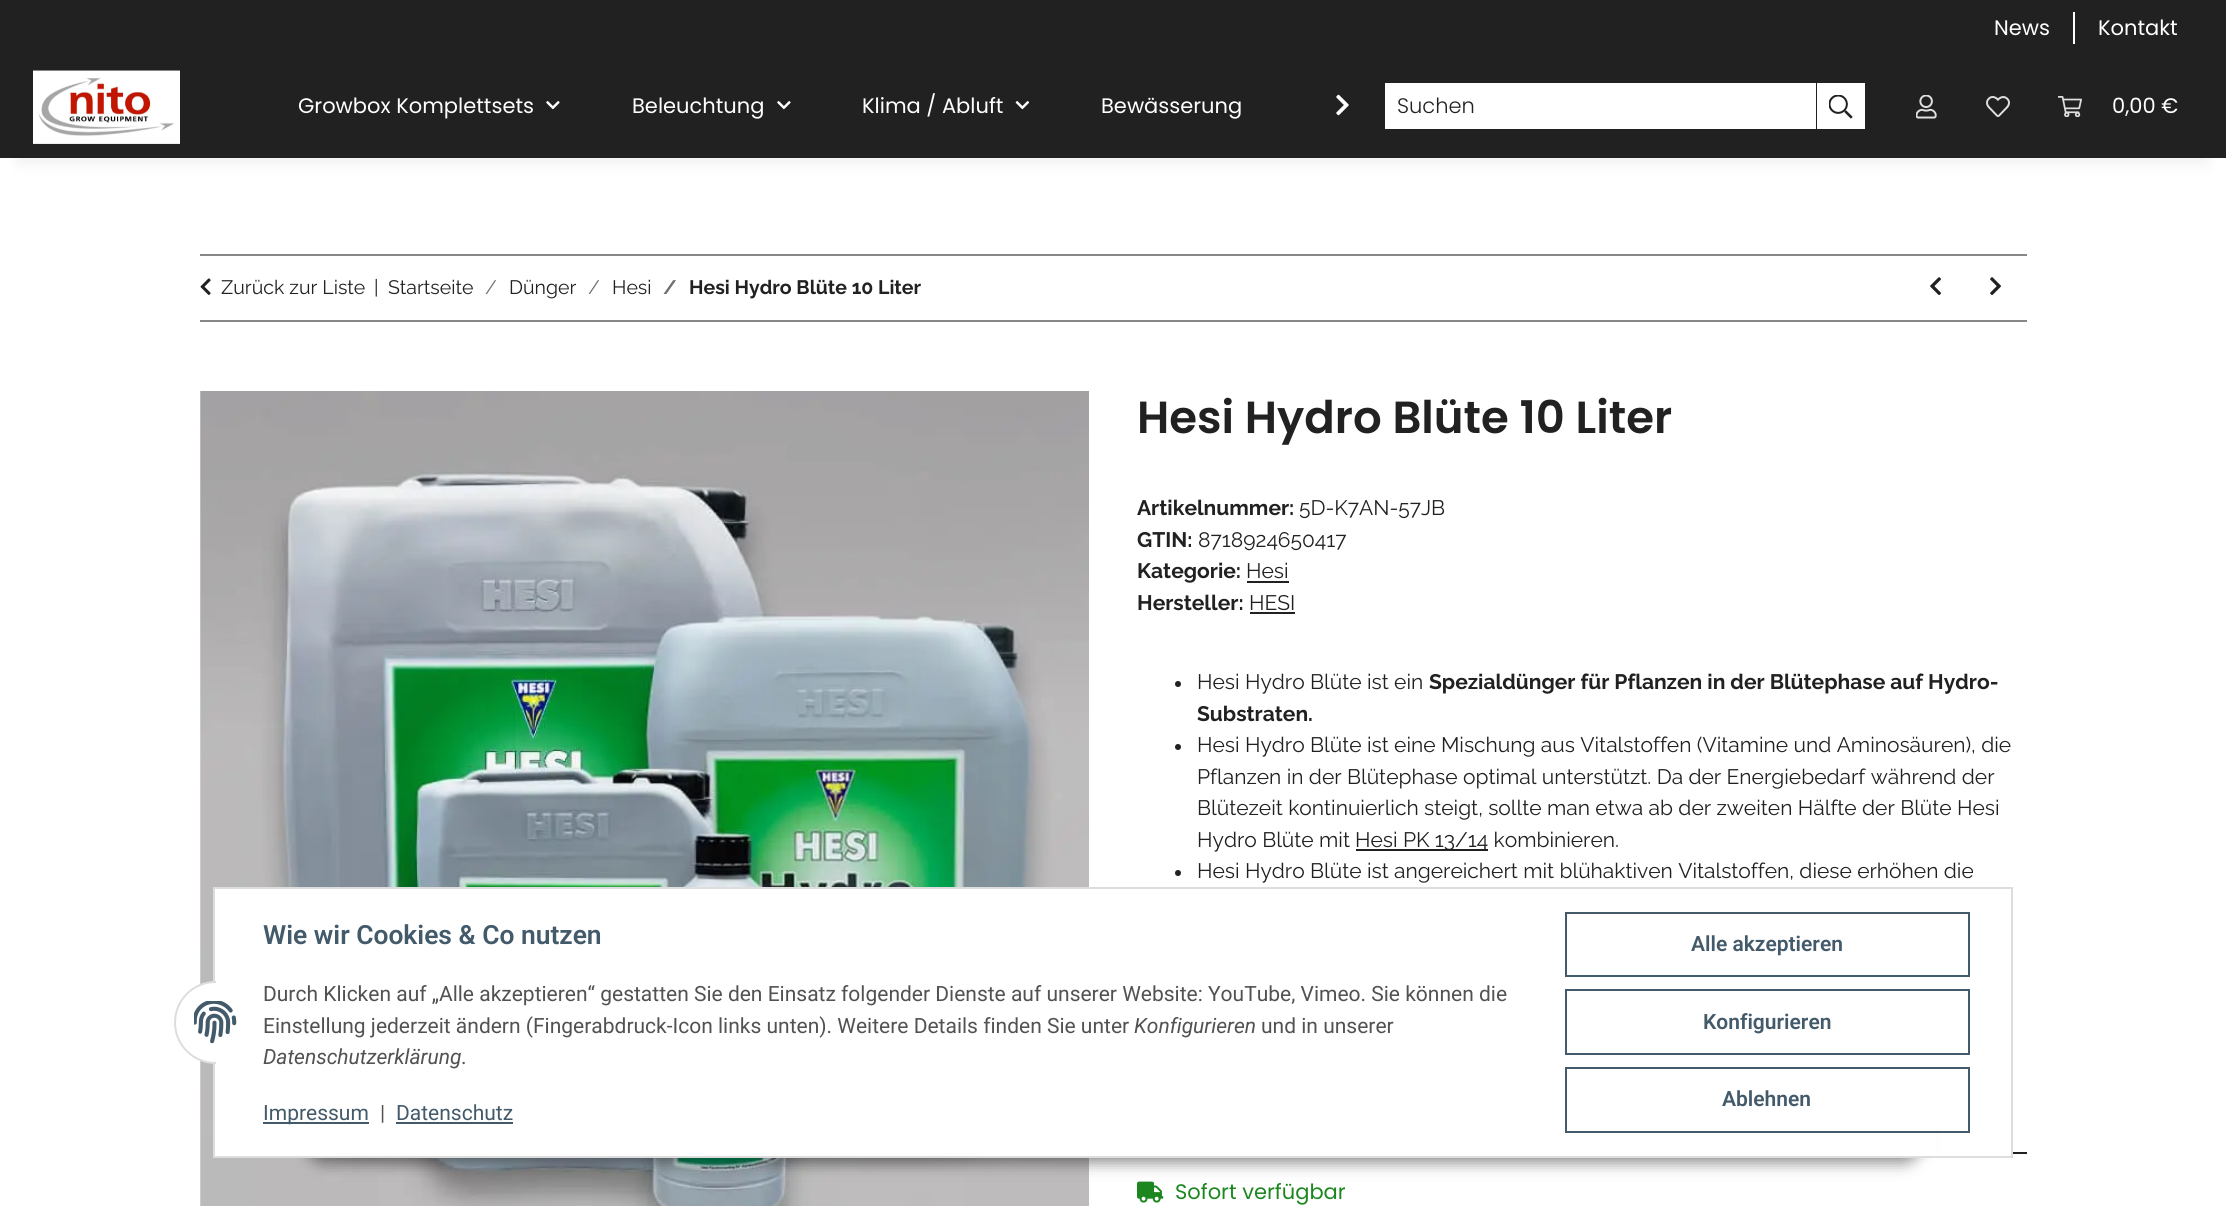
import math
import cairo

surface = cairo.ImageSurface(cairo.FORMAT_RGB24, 2226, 1206)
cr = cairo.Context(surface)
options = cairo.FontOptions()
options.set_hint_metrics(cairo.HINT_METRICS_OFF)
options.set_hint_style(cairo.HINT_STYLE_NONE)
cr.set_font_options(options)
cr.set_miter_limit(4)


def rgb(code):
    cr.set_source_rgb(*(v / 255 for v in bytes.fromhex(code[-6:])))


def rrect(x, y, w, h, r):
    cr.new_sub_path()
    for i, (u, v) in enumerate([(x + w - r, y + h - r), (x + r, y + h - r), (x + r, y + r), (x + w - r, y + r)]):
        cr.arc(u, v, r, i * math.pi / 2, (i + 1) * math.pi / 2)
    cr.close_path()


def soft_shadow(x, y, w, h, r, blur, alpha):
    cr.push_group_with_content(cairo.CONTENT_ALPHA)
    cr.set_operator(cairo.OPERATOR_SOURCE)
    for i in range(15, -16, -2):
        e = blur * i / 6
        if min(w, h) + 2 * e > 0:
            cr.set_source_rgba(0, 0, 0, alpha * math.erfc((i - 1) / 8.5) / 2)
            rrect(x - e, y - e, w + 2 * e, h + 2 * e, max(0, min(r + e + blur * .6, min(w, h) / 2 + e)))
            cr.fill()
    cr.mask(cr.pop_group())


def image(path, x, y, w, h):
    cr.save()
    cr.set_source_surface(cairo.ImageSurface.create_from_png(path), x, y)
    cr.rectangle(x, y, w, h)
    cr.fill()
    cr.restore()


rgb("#ffffff")
cr.paint()
rgb("#000000")
soft_shadow(18, 98, 2190, 66, 0, 7, 0.06)
rgb("#212121")
cr.rectangle(0, 0, 2226, 158)
cr.fill()
rgb("#ffffff")
cr.rectangle(2073, 12, 2, 32)
cr.fill()
image("img/1.png", 33, 70, 147, 74)
image("img/2.png", 546, 101, 14, 9)
image("img/2.png", 777, 101, 14, 9)
image("img/3.png", 1015, 101, 15, 9)
image("img/4.png", 1336, 94, 13, 22)
cr.rectangle(1385, 83, 431, 46)
cr.fill()
cr.rectangle(1817, 83, 48, 46)
cr.fill()
image("img/5.png", 1829, 95, 24, 24)
image("img/6.png", 1916, 95, 21, 24)
image("img/7.png", 1986, 96, 24, 21)
image("img/8.png", 2058, 96, 24, 21)
rgb("#888888")
cr.rectangle(200, 254, 1827, 2)
cr.fill()
cr.rectangle(200, 320, 1827, 2)
cr.fill()
image("img/9.png", 200, 278, 11, 17)
image("img/10.png", 1930, 277, 11, 18)
image("img/11.png", 1990, 277, 11, 18)
image("img/12.png", 200, 391, 889, 815)
rgb("#212121")
cr.rectangle(1247, 581, 42, 2)
cr.fill()
cr.rectangle(1250, 612, 45, 2)
cr.fill()
cr.arc(1178, 684, 3, 0, 2 * math.pi)
cr.fill()
cr.arc(1178, 747, 3, 0, 2 * math.pi)
cr.fill()
cr.rectangle(1356, 849, 132, 2)
cr.fill()
cr.arc(1178, 873, 3, 0, 2 * math.pi)
cr.fill()
cr.rectangle(2013, 1152, 14, 2)
cr.fill()
image("img/13.png", 1137, 1181, 27, 22)
rgb("#000000")
soft_shadow(305, 1115, 1617, 48, 24, 7.5, 0.45)
rgb("#ffffff")
cr.rectangle(215, 889, 1721, 267)
cr.fill()
cr.rectangle(214, 888, 1798, 269)
rgb("#dddddd")
cr.stroke()
rgb("#ffffff")
cr.arc(215.5, 1022.5, 40.5, 0, 2 * math.pi)
cr.fill_preserve()
rgb("#dddddd")
cr.stroke()
rgb("#ffffff")
cr.rectangle(216, 981, 41, 83)
cr.fill()
image("img/14.png", 194, 1001, 43, 43)
rgb("#435a6b")
cr.rectangle(263, 1122, 106, 2)
cr.fill()
cr.rectangle(396, 1122, 117, 2)
cr.fill()
cr.rectangle(1566, 913, 403, 63)
cr.stroke()
cr.rectangle(1566, 990, 403, 64)
cr.stroke()
cr.rectangle(1566, 1068, 403, 64)
cr.stroke()
cr.select_font_face("Poppins")
cr.set_font_size(21)
rgb("#ffffff")
for x, y, s in [
    (1994, 35, "News"),
    (2098, 35, "Kontakt"),
    (298, 113, "Growbox Komplettsets"),
    (632, 113, "Beleuchtung"),
    (862, 113, "Klima / Abluft"),
    (1101, 113, "Bewässerung"),
]:
    cr.move_to(x, y)
    cr.show_text(s)
cr.select_font_face("Poppins Light")
rgb("#212121")
cr.move_to(1397, 113)
cr.show_text("Suchen")
cr.select_font_face("Poppins")
rgb("#ffffff")
cr.move_to(2112, 113)
cr.show_text("0,00 €")
cr.select_font_face("Raleway")
cr.set_font_size(19.5)
rgb("#212121")
for x, y, s in [
    (221, 294, "Zurück zur Liste"),
    (374, 294, "|"),
    (388, 294, "Startseite"),
]:
    cr.move_to(x, y)
    cr.show_text(s)
rgb("#707070")
cr.move_to(485, 294)
cr.show_text("/")
rgb("#212121")
cr.move_to(509, 294)
cr.show_text("Dünger")
rgb("#707070")
cr.move_to(588, 294)
cr.show_text("/")
rgb("#212121")
cr.move_to(612, 294)
cr.show_text("Hesi")
cr.select_font_face("Raleway", cairo.FONT_SLANT_NORMAL, cairo.FONT_WEIGHT_BOLD)
rgb("#707070")
cr.move_to(663, 294)
cr.show_text("/")
rgb("#212121")
cr.move_to(689, 294)
cr.show_text("Hesi Hydro Blüte 10 Liter")
cr.select_font_face("Poppins SemiBold")
cr.set_font_size(45)
cr.move_to(1137, 433)
cr.show_text("Hesi Hydro Blüte 10 Liter")
cr.select_font_face("Raleway", cairo.FONT_SLANT_NORMAL, cairo.FONT_WEIGHT_BOLD)
cr.set_font_size(21)
cr.move_to(1137, 515)
cr.show_text("Artikelnummer:")
cr.select_font_face("Raleway")
cr.move_to(1299, 515)
cr.show_text("5D-K7AN-57JB")
cr.select_font_face("Raleway", cairo.FONT_SLANT_NORMAL, cairo.FONT_WEIGHT_BOLD)
cr.move_to(1137, 547)
cr.show_text("GTIN:")
cr.select_font_face("Raleway")
cr.move_to(1198, 547)
cr.show_text("8718924650417")
cr.select_font_face("Raleway", cairo.FONT_SLANT_NORMAL, cairo.FONT_WEIGHT_BOLD)
cr.move_to(1137, 578)
cr.show_text("Kategorie:")
cr.select_font_face("Raleway")
cr.move_to(1246, 578)
cr.show_text("Hesi")
cr.select_font_face("Raleway", cairo.FONT_SLANT_NORMAL, cairo.FONT_WEIGHT_BOLD)
cr.move_to(1137, 610)
cr.show_text("Hersteller:")
cr.select_font_face("Raleway")
cr.move_to(1249, 610)
cr.show_text("HESI")
cr.move_to(1197, 689)
cr.show_text("Hesi Hydro Blüte ist ein")
cr.select_font_face("Raleway", cairo.FONT_SLANT_NORMAL, cairo.FONT_WEIGHT_BOLD)
cr.move_to(1429, 689)
cr.show_text("Spezialdünger für Pflanzen in der Blütephase auf Hydro-")
cr.move_to(1197, 721)
cr.show_text("Substraten.")
cr.select_font_face("Raleway")
for x, y, s in [
    (1197, 752, "Hesi Hydro Blüte ist eine Mischung aus Vitalstoffen (Vitamine und Aminosäuren), die"),
    (1197, 784, "Pflanzen in der Blütephase optimal unterstützt. Da der Energiebedarf während der"),
    (1197, 815, "Blütezeit kontinuierlich steigt, sollte man etwa ab der zweiten Hälfte der Blüte Hesi"),
    (1197, 847, "Hydro Blüte mit"),
    (1355, 847, "Hesi PK 13/14 kombinieren."),
    (1197, 878, "Hesi Hydro Blüte ist angereichert mit blühaktiven Vitalstoffen, diese erhöhen die"),
]:
    cr.move_to(x, y)
    cr.show_text(s)
cr.select_font_face("Poppins")
rgb("#1c871e")
cr.move_to(1175, 1199)
cr.show_text("Sofort verfügbar")
cr.select_font_face("Roboto SemiBold")
cr.set_font_size(26.4)
rgb("#435a6b")
cr.move_to(263, 944)
cr.show_text("Wie wir Cookies & Co nutzen")
cr.select_font_face("Roboto")
cr.set_font_size(21)
rgb("#525252")
cr.move_to(263, 1001)
cr.show_text("Durch Klicken auf „Alle akzeptieren“ gestatten Sie den Einsatz folgender Dienste auf unserer Website: YouTube, Vimeo. Sie können die")
cr.move_to(263, 1033)
cr.show_text("Einstellung jederzeit ändern (Fingerabdruck-Icon links unten). Weitere Details finden Sie unter")
cr.select_font_face("Roboto", cairo.FONT_SLANT_ITALIC)
cr.move_to(1134, 1033)
cr.show_text("Konfigurieren")
cr.select_font_face("Roboto")
cr.move_to(1261, 1033)
cr.show_text("und in unserer")
cr.select_font_face("Roboto", cairo.FONT_SLANT_ITALIC)
cr.move_to(263, 1064)
cr.show_text("Datenschutzerklärung")
cr.select_font_face("Roboto")
cr.move_to(461, 1064)
cr.show_text(".")
rgb("#435a6b")
cr.move_to(263, 1120)
cr.show_text("Impressum")
rgb("#525252")
cr.move_to(380, 1120)
cr.show_text("|")
rgb("#435a6b")
cr.move_to(396, 1120)
cr.show_text("Datenschutz")
cr.select_font_face("Roboto SemiBold")
for x, y, s in [
    (1691, 951, "Alle akzeptieren"),
    (1703, 1029, "Konfigurieren"),
    (1722, 1106, "Ablehnen"),
]:
    cr.move_to(x, y)
    cr.show_text(s)
surface.write_to_png("page.png")
